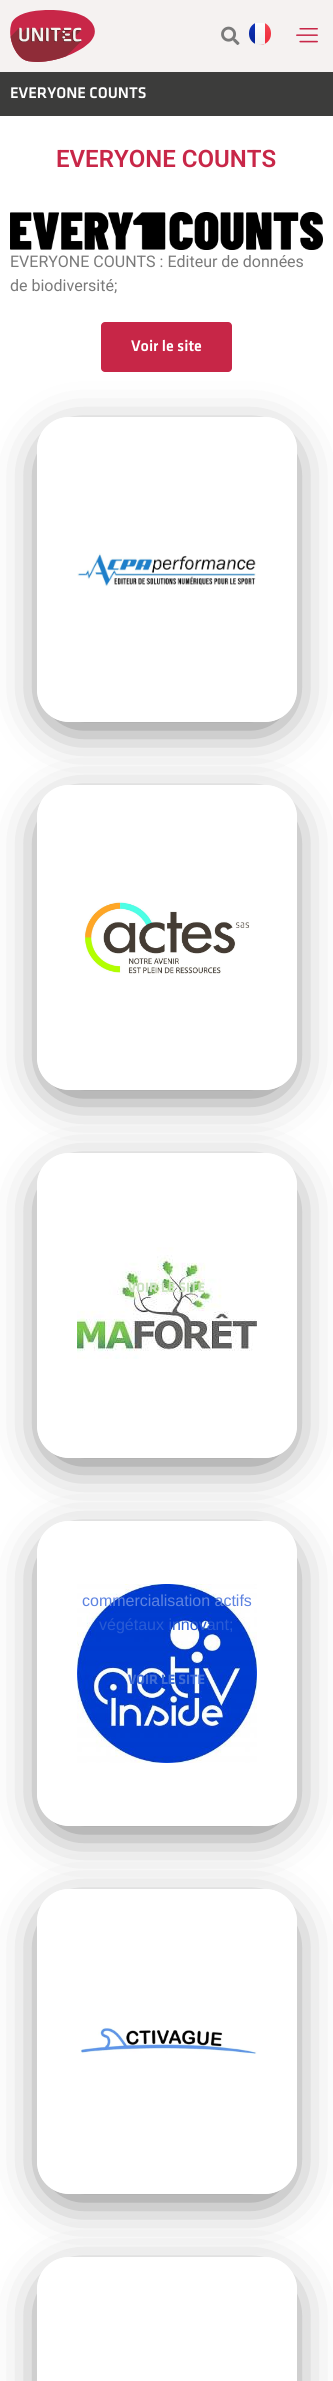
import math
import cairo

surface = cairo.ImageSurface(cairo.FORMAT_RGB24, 333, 2381)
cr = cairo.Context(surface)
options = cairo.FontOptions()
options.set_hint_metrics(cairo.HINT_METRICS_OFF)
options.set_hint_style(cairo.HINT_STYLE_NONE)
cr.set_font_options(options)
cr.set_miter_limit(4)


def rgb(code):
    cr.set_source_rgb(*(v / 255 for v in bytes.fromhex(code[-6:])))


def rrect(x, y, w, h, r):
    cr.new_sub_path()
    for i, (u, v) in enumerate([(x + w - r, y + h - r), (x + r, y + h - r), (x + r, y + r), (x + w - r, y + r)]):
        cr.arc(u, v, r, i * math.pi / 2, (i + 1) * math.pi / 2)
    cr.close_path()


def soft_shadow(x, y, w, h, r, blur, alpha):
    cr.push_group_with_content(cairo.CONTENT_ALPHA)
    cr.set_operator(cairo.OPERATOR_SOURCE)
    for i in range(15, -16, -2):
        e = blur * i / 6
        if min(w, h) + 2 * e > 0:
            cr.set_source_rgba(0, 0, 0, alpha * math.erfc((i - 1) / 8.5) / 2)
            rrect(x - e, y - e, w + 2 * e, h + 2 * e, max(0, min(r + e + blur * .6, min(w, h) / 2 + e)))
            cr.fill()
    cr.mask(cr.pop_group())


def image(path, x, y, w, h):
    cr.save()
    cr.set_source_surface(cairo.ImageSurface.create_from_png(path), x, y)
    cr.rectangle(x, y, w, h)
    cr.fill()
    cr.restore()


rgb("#ffffff")
cr.paint()
rgb("#f5f2f1")
cr.rectangle(0, 0, 333, 72)
cr.fill()
image("img/1.png", 10, 10, 85, 52)
image("img/2.png", 221, 26, 19, 19)
cr.save()
rrect(249, 22, 22, 23, 11)
cr.clip()
gradient = cairo.LinearGradient(249, 22, 249, 45)
gradient.add_color_stop_rgba(0, 0.063, 0.208, 0.733, 1)
gradient.add_color_stop_rgba(1, 0.016, 0.137, 0.588, 1)
cr.set_source(gradient)
cr.rectangle(249, 23, 6, 22)
cr.fill()
gradient = cairo.LinearGradient(267, 22, 267, 45)
gradient.add_color_stop_rgba(0, 0.957, 0.275, 0.325, 1)
gradient.add_color_stop_rgba(1, 0.933, 0.165, 0.224, 1)
cr.set_source(gradient)
cr.new_path()
cr.move_to(259, 23)
cr.line_to(271, 23)
cr.line_to(271, 34)
cr.curve_to(271, 40, 266, 45, 260, 45)
cr.line_to(259, 45)
cr.close_path()
cr.fill()
gradient = cairo.LinearGradient(260, 22, 260, 45)
gradient.add_color_stop_rgba(0, 1, 1, 1, 1)
gradient.add_color_stop_rgba(1, 0.941, 0.941, 0.941, 1)
cr.set_source(gradient)
cr.rectangle(255, 23, 10, 22)
cr.fill()
cr.restore()
image("img/3.png", 296, 28, 22, 15)
rgb("#3c3c3b")
cr.rectangle(0, 72, 333, 44)
cr.fill()
image("img/4.png", 10, 212, 313, 38)
rgb("#c72647")
rrect(101, 322, 131, 50, 4)
cr.fill()
cr.save()
cr.set_fill_rule(cairo.FILL_RULE_EVEN_ODD)
cr.new_path()
cr.move_to(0, 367)
cr.line_to(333, 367)
cr.line_to(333, 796)
cr.line_to(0, 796)
cr.close_path()
cr.move_to(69, 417)
cr.line_to(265, 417)
cr.curve_to(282.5, 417, 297, 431.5, 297, 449)
cr.line_to(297, 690)
cr.curve_to(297, 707.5, 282.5, 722, 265, 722)
cr.line_to(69, 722)
cr.curve_to(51.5, 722, 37, 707.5, 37, 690)
cr.line_to(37, 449)
cr.curve_to(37, 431.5, 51.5, 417, 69, 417)
cr.close_path()
cr.clip()
rgb("#000000")
soft_shadow(53, 445, 228, 273, 16, 25.5, 0.75)
cr.restore()
image("img/5.png", 77, 553, 179, 34)
cr.save()
cr.set_fill_rule(cairo.FILL_RULE_EVEN_ODD)
cr.new_path()
cr.move_to(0, 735)
cr.line_to(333, 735)
cr.line_to(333, 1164)
cr.line_to(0, 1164)
cr.close_path()
cr.move_to(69, 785)
cr.line_to(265, 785)
cr.curve_to(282.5, 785, 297, 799.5, 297, 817)
cr.line_to(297, 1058)
cr.curve_to(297, 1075.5, 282.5, 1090, 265, 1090)
cr.line_to(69, 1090)
cr.curve_to(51.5, 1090, 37, 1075.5, 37, 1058)
cr.line_to(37, 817)
cr.curve_to(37, 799.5, 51.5, 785, 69, 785)
cr.close_path()
cr.clip()
rgb("#000000")
soft_shadow(53, 813, 228, 273, 16, 25.5, 0.75)
cr.restore()
image("img/6.png", 84, 901, 166, 73)
cr.save()
cr.set_fill_rule(cairo.FILL_RULE_EVEN_ODD)
cr.new_path()
cr.move_to(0, 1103)
cr.line_to(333, 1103)
cr.line_to(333, 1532)
cr.line_to(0, 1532)
cr.close_path()
cr.move_to(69, 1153)
cr.line_to(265, 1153)
cr.curve_to(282.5, 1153, 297, 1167.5, 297, 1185)
cr.line_to(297, 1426)
cr.curve_to(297, 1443.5, 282.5, 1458, 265, 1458)
cr.line_to(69, 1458)
cr.curve_to(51.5, 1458, 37, 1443.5, 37, 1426)
cr.line_to(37, 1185)
cr.curve_to(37, 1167.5, 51.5, 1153, 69, 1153)
cr.close_path()
cr.clip()
rgb("#000000")
soft_shadow(53, 1181, 228, 273, 16, 25.5, 0.75)
cr.restore()
image("img/7.png", 77, 1247, 180, 112)
cr.save()
cr.set_fill_rule(cairo.FILL_RULE_EVEN_ODD)
cr.new_path()
cr.move_to(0, 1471)
cr.line_to(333, 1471)
cr.line_to(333, 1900)
cr.line_to(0, 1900)
cr.close_path()
cr.move_to(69, 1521)
cr.line_to(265, 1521)
cr.curve_to(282.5, 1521, 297, 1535.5, 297, 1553)
cr.line_to(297, 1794)
cr.curve_to(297, 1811.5, 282.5, 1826, 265, 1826)
cr.line_to(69, 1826)
cr.curve_to(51.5, 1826, 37, 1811.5, 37, 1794)
cr.line_to(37, 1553)
cr.curve_to(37, 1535.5, 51.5, 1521, 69, 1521)
cr.close_path()
cr.clip()
rgb("#000000")
soft_shadow(53, 1549, 228, 273, 16, 25.5, 0.75)
cr.restore()
image("img/8.png", 77, 1584, 180, 179)
cr.save()
cr.set_fill_rule(cairo.FILL_RULE_EVEN_ODD)
cr.new_path()
cr.move_to(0, 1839)
cr.line_to(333, 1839)
cr.line_to(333, 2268)
cr.line_to(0, 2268)
cr.close_path()
cr.move_to(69, 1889)
cr.line_to(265, 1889)
cr.curve_to(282.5, 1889, 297, 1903.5, 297, 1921)
cr.line_to(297, 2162)
cr.curve_to(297, 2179.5, 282.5, 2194, 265, 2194)
cr.line_to(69, 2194)
cr.curve_to(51.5, 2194, 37, 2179.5, 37, 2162)
cr.line_to(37, 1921)
cr.curve_to(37, 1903.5, 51.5, 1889, 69, 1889)
cr.close_path()
cr.clip()
rgb("#000000")
soft_shadow(53, 1917, 228, 273, 16, 25.5, 0.75)
cr.restore()
image("img/9.png", 80, 2027, 177, 27)
cr.save()
cr.set_fill_rule(cairo.FILL_RULE_EVEN_ODD)
cr.new_path()
cr.move_to(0, 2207)
cr.line_to(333, 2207)
cr.line_to(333, 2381)
cr.line_to(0, 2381)
cr.close_path()
cr.move_to(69, 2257)
cr.line_to(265, 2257)
cr.curve_to(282.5, 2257, 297, 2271.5, 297, 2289)
cr.line_to(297, 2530)
cr.curve_to(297, 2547.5, 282.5, 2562, 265, 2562)
cr.line_to(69, 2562)
cr.curve_to(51.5, 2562, 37, 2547.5, 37, 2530)
cr.line_to(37, 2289)
cr.curve_to(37, 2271.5, 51.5, 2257, 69, 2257)
cr.close_path()
cr.clip()
rgb("#000000")
soft_shadow(53, 2285, 228, 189, 16, 25.5, 0.75)
cr.restore()
cr.select_font_face("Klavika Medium")
cr.set_font_size(16)
rgb("#ffffff")
cr.move_to(10, 98)
cr.show_text("EVERYONE COUNTS")
cr.select_font_face("Roboto SemiBold")
cr.set_font_size(24)
rgb("#c82748")
cr.move_to(56, 167)
cr.show_text("EVERYONE COUNTS")
cr.select_font_face("Roboto")
cr.set_font_size(16)
rgb("#7a7a7a")
cr.move_to(10, 267)
cr.show_text("EVERYONE COUNTS : Editeur de données")
cr.move_to(10, 291)
cr.show_text("de biodiversité;")
cr.select_font_face("Klavika Medium")
rgb("#ffffff")
cr.move_to(131, 351)
cr.show_text("Voir le site")
cr.select_font_face("Klavika", cairo.FONT_SLANT_NORMAL, cairo.FONT_WEIGHT_BOLD)
cr.set_font_size(14)
rgb("#cee3c3")
cr.move_to(128, 1292)
cr.show_text("VOIR LE SITE")
cr.select_font_face("Liberation Sans")
cr.set_font_size(16)
rgb("#5e83e0")
cr.move_to(82, 1606)
cr.show_text("commercialisation actifs")
rgb("#295bd5")
cr.move_to(99, 1630)
cr.show_text("végétaux innovant;")
cr.select_font_face("Klavika", cairo.FONT_SLANT_NORMAL, cairo.FONT_WEIGHT_BOLD)
cr.set_font_size(14)
rgb("#3f6cd6")
cr.move_to(128, 1684)
cr.show_text("VOIR LE SITE")
surface.write_to_png("page.png")
